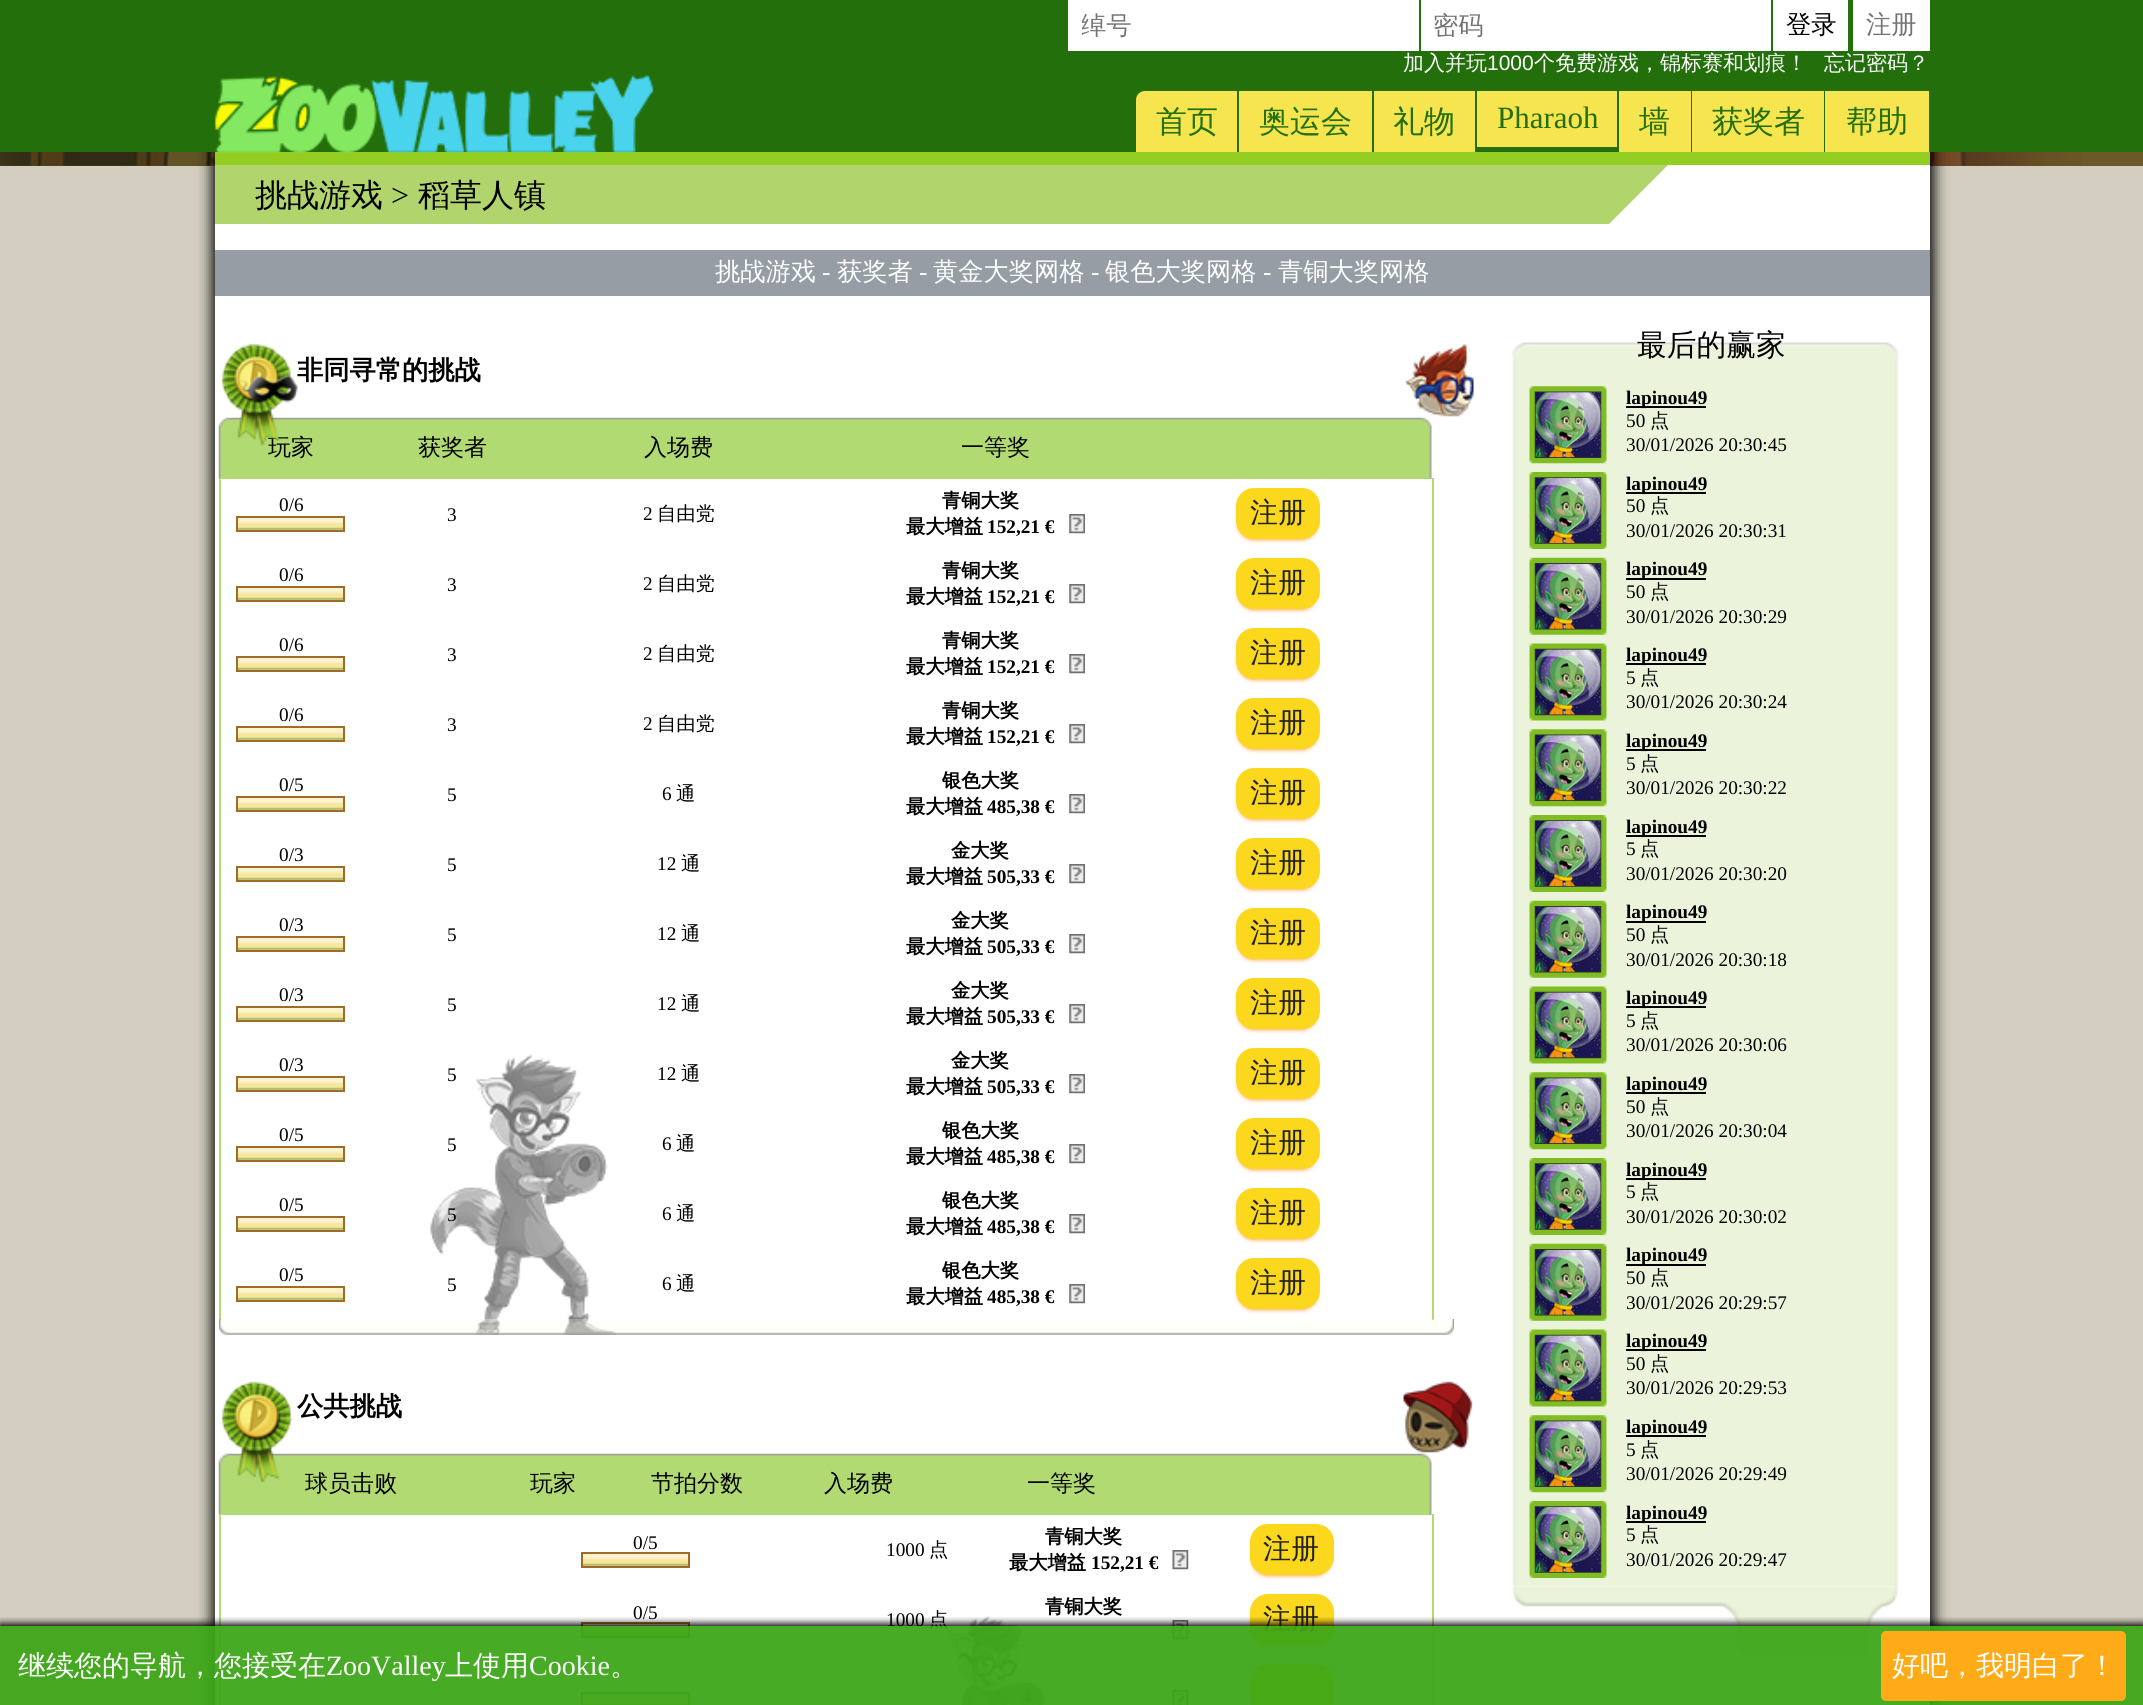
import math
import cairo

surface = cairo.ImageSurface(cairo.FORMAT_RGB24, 2143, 1705)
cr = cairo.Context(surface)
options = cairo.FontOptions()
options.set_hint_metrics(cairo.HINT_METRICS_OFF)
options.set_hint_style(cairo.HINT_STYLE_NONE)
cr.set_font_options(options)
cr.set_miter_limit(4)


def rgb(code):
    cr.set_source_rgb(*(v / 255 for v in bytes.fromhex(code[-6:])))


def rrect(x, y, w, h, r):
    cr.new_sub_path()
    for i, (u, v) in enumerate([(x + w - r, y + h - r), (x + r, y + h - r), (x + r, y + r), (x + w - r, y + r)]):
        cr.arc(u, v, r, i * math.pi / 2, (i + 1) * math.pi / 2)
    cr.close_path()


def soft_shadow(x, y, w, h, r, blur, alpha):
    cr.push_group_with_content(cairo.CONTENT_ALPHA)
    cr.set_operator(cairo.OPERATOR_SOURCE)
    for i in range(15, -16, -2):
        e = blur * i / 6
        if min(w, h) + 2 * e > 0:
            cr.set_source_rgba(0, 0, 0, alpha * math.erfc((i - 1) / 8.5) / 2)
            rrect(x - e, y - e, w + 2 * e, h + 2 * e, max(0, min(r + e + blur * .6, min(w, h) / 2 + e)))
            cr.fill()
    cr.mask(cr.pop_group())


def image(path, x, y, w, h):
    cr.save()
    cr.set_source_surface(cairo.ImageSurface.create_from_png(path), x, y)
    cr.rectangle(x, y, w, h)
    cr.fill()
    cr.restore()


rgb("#d3cebf")
cr.paint()
rgb("#6b5929")
cr.rectangle(0, 152, 2143, 14)
cr.fill()
image("img/2.png", 0, 152, 2081, 14)
rgb("#000000")
soft_shadow(212, 110, 1722, 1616, 0, 7, 1)
for x, y, w, h, color in [
    (0, 0, 2143, 152, "#236f0b"),
    (1068, 0, 351, 51, "#ffffff"),
    (1421, 0, 350, 51, "#ffffff"),
    (1773, 0, 75, 51, "#ffffff"),
    (1853, 0, 77, 51, "#ffffff"),
    (215, 152, 1715, 13, "#93cd21"),
]:
    rgb(color)
    cr.rectangle(x, y, w, h)
    cr.fill()
image("img/1.png", 214, 74, 440, 79)
rgb("#f7e550")
cr.new_path()
cr.move_to(1145, 91)
cr.line_to(1239, 91)
cr.line_to(1239, 152)
cr.line_to(1136, 152)
cr.line_to(1136, 100)
cr.curve_to(1136, 95, 1140, 91, 1145, 91)
cr.close_path()
cr.fill()
for x, y, w, h, color in [
    (1237, 91, 2, 61, "#236f0b"),
    (1239, 91, 133, 61, "#f7e550"),
    (1374, 91, 101, 61, "#f7e550"),
    (1477, 91, 140, 56, "#f7e550"),
    (1619, 91, 72, 61, "#f7e550"),
    (1692, 91, 132, 61, "#f7e550"),
    (1825, 91, 104, 61, "#f7e550"),
    (215, 165, 1715, 1540, "#ffffff"),
    (215, 165, 1458, 59, "#b1d46c"),
]:
    rgb(color)
    cr.rectangle(x, y, w, h)
    cr.fill()
cr.save()
cr.rectangle(215, 165, 1458, 59)
cr.clip()
rgb("#ffffff")
cr.new_path()
cr.move_to(1683, 150)
cr.line_to(1714, 182)
cr.line_to(1630, 267)
cr.line_to(1598, 235)
cr.close_path()
cr.fill()
cr.restore()
rgb("#969da5")
cr.rectangle(215, 250, 1715, 46)
cr.fill()
image("img/4.png", 1405, 344, 69, 73)
image("img/5.png", 430, 1054, 187, 281)
image("img/6.png", 218, 417, 1214, 62)
image("img/7.png", 238, 518, 105, 12)
cr.rectangle(237, 517, 107, 14)
rgb("#a06b27")
cr.stroke()
image("img/8.png", 1069, 514, 16, 20)
rgb("#ff8000")
soft_shadow(1239, 495, 77, 44, 14, 2.5, 1)
rgb("#fbd81e")
rrect(1236, 488, 84, 51, 18)
cr.fill()
image("img/7.png", 238, 588, 105, 12)
cr.rectangle(237, 587, 107, 14)
rgb("#a06b27")
cr.stroke()
image("img/8.png", 1069, 584, 16, 20)
rgb("#ff8000")
soft_shadow(1239, 565, 77, 44, 14, 2.5, 1)
rgb("#fbd81e")
rrect(1236, 558, 84, 51, 18)
cr.fill()
image("img/7.png", 238, 658, 105, 12)
cr.rectangle(237, 657, 107, 14)
rgb("#a06b27")
cr.stroke()
image("img/8.png", 1069, 654, 16, 20)
rgb("#ff8000")
soft_shadow(1239, 635, 77, 44, 14, 2.5, 1)
rgb("#fbd81e")
rrect(1236, 628, 84, 51, 18)
cr.fill()
image("img/7.png", 238, 728, 105, 12)
cr.rectangle(237, 727, 107, 14)
rgb("#a06b27")
cr.stroke()
image("img/8.png", 1069, 724, 16, 20)
rgb("#ff8000")
soft_shadow(1239, 705, 77, 44, 14, 2.5, 1)
rgb("#fbd81e")
rrect(1236, 698, 84, 51, 18)
cr.fill()
image("img/7.png", 238, 798, 105, 12)
cr.rectangle(237, 797, 107, 14)
rgb("#a06b27")
cr.stroke()
image("img/8.png", 1069, 794, 16, 20)
rgb("#ff8000")
soft_shadow(1239, 775, 77, 44, 14, 2.5, 1)
rgb("#fbd81e")
rrect(1236, 768, 84, 51, 18)
cr.fill()
image("img/7.png", 238, 868, 105, 12)
cr.rectangle(237, 867, 107, 14)
rgb("#a06b27")
cr.stroke()
image("img/8.png", 1069, 864, 16, 20)
rgb("#ff8000")
soft_shadow(1239, 845, 77, 44, 14, 2.5, 1)
rgb("#fbd81e")
rrect(1236, 838, 84, 51, 18)
cr.fill()
image("img/7.png", 238, 938, 105, 12)
cr.rectangle(237, 937, 107, 14)
rgb("#a06b27")
cr.stroke()
image("img/8.png", 1069, 934, 16, 20)
rgb("#ff8000")
soft_shadow(1239, 915, 77, 44, 14, 2.5, 1)
rgb("#fbd81e")
rrect(1236, 908, 84, 51, 18)
cr.fill()
image("img/7.png", 238, 1008, 105, 12)
cr.rectangle(237, 1007, 107, 14)
rgb("#a06b27")
cr.stroke()
image("img/8.png", 1069, 1004, 16, 20)
rgb("#ff8000")
soft_shadow(1239, 985, 77, 44, 14, 2.5, 1)
rgb("#fbd81e")
rrect(1236, 978, 84, 51, 18)
cr.fill()
image("img/7.png", 238, 1078, 105, 12)
cr.rectangle(237, 1077, 107, 14)
rgb("#a06b27")
cr.stroke()
image("img/8.png", 1069, 1074, 16, 20)
rgb("#ff8000")
soft_shadow(1239, 1055, 77, 44, 14, 2.5, 1)
rgb("#fbd81e")
rrect(1236, 1048, 84, 51, 18)
cr.fill()
image("img/7.png", 238, 1148, 105, 12)
cr.rectangle(237, 1147, 107, 14)
rgb("#a06b27")
cr.stroke()
image("img/8.png", 1069, 1144, 16, 20)
rgb("#ff8000")
soft_shadow(1239, 1125, 77, 44, 14, 2.5, 1)
rgb("#fbd81e")
rrect(1236, 1118, 84, 51, 18)
cr.fill()
image("img/7.png", 238, 1218, 105, 12)
cr.rectangle(237, 1217, 107, 14)
rgb("#a06b27")
cr.stroke()
image("img/8.png", 1069, 1214, 16, 20)
rgb("#ff8000")
soft_shadow(1239, 1195, 77, 44, 14, 2.5, 1)
rgb("#fbd81e")
rrect(1236, 1188, 84, 51, 18)
cr.fill()
rgb("#b2da73")
cr.rectangle(1432, 478, 2, 842)
cr.fill()
cr.rectangle(219, 478, 2, 842)
cr.fill()
image("img/7.png", 238, 1288, 105, 12)
cr.rectangle(237, 1287, 107, 14)
rgb("#a06b27")
cr.stroke()
image("img/8.png", 1069, 1284, 16, 20)
rgb("#ff8000")
soft_shadow(1239, 1265, 77, 44, 14, 2.5, 1)
rgb("#fbd81e")
rrect(1236, 1258, 84, 51, 18)
cr.fill()
image("img/9.png", 219, 1319, 1235, 16)
image("img/6.png", 218, 1453, 1214, 62)
image("img/10.png", 221, 1381, 72, 101)
image("img/11.png", 1403, 1381, 70, 72)
image("img/12.png", 948, 1616, 98, 89)
rgb("#b2da73")
cr.rectangle(1432, 1514, 2, 191)
cr.fill()
cr.rectangle(219, 1514, 2, 191)
cr.fill()
image("img/13.png", 583, 1694, 105, 11)
cr.rectangle(582, 1693, 107, 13)
rgb("#a06b27")
cr.stroke()
image("img/14.png", 1172, 1690, 17, 15)
rgb("#ff8000")
soft_shadow(1253, 1671, 77, 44, 14, 2.5, 1)
rgb("#fbd81e")
rrect(1250, 1664, 84, 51, 18)
cr.fill()
image("img/7.png", 583, 1554, 105, 12)
cr.rectangle(582, 1553, 107, 14)
rgb("#a06b27")
cr.stroke()
image("img/15.png", 1172, 1550, 17, 20)
rgb("#ff8000")
soft_shadow(1253, 1531, 77, 44, 14, 2.5, 1)
rgb("#fbd81e")
rrect(1250, 1524, 84, 51, 18)
cr.fill()
image("img/7.png", 583, 1624, 105, 12)
cr.rectangle(582, 1623, 107, 14)
rgb("#a06b27")
cr.stroke()
image("img/15.png", 1172, 1620, 17, 20)
rgb("#ff8000")
soft_shadow(1253, 1601, 77, 44, 14, 2.5, 1)
rgb("#fbd81e")
rrect(1250, 1594, 84, 51, 18)
cr.fill()
image("img/16.png", 1512, 342, 387, 18)
image("img/17.png", 1512, 360, 387, 1227)
image("img/18.png", 1529, 386, 78, 78)
image("img/19.png", 1534, 391, 68, 67)
rgb("#000000")
cr.rectangle(1626, 406, 80, 2)
cr.fill()
image("img/20.png", 1529, 472, 78, 77)
image("img/21.png", 1534, 477, 68, 67)
cr.rectangle(1626, 492, 80, 2)
cr.fill()
image("img/22.png", 1529, 557, 78, 78)
image("img/23.png", 1534, 563, 68, 67)
cr.rectangle(1626, 578, 80, 2)
cr.fill()
image("img/24.png", 1529, 643, 78, 78)
image("img/25.png", 1534, 648, 68, 68)
cr.rectangle(1626, 663, 80, 2)
cr.fill()
image("img/18.png", 1529, 729, 78, 78)
image("img/19.png", 1534, 734, 68, 67)
cr.rectangle(1626, 749, 80, 2)
cr.fill()
image("img/20.png", 1529, 815, 78, 77)
image("img/21.png", 1534, 820, 68, 67)
cr.rectangle(1626, 835, 80, 2)
cr.fill()
image("img/22.png", 1529, 900, 78, 78)
image("img/23.png", 1534, 906, 68, 67)
cr.rectangle(1626, 921, 80, 2)
cr.fill()
image("img/24.png", 1529, 986, 78, 78)
image("img/25.png", 1534, 991, 68, 68)
cr.rectangle(1626, 1006, 80, 2)
cr.fill()
image("img/18.png", 1529, 1072, 78, 78)
image("img/19.png", 1534, 1077, 68, 67)
cr.rectangle(1626, 1092, 80, 2)
cr.fill()
image("img/20.png", 1529, 1158, 78, 77)
image("img/21.png", 1534, 1163, 68, 67)
cr.rectangle(1626, 1178, 80, 2)
cr.fill()
image("img/22.png", 1529, 1243, 78, 78)
image("img/23.png", 1534, 1249, 68, 67)
cr.rectangle(1626, 1264, 80, 2)
cr.fill()
image("img/24.png", 1529, 1329, 78, 78)
image("img/25.png", 1534, 1334, 68, 68)
cr.rectangle(1626, 1349, 80, 2)
cr.fill()
image("img/18.png", 1529, 1415, 78, 78)
image("img/19.png", 1534, 1420, 68, 67)
cr.rectangle(1626, 1435, 80, 2)
cr.fill()
image("img/20.png", 1529, 1501, 78, 77)
image("img/26.png", 1534, 1506, 68, 67)
cr.rectangle(1626, 1521, 80, 2)
cr.fill()
image("img/27.png", 1512, 1587, 387, 69)
cr.save()
cr.rectangle(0, 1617, 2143, 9)
cr.clip()
rgb("#000000")
soft_shadow(0, 1626, 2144, 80, 0, 4.5, 1)
cr.restore()
cr.save()
cr.rectangle(1082, 9, 325, 33)
cr.clip()
cr.select_font_face("WenQuanYi Zen Hei Medium")
cr.set_font_size(25.25)
rgb("#757575")
cr.move_to(1081, 34)
cr.show_text("绰号")
cr.restore()
cr.select_font_face("WenQuanYi Zen Hei Medium")
cr.set_font_size(25.25)
rgb("#757575")
cr.move_to(1433, 34)
cr.show_text("密码")
rgb("#000000")
cr.move_to(1786, 33)
cr.show_text("登录")
rgb("#757575")
cr.move_to(1866, 33)
cr.show_text("注册")
cr.set_font_size(21)
rgb("#ffffff")
cr.move_to(1403, 70)
cr.show_text("加入并玩")
cr.select_font_face("Liberation Sans")
cr.move_to(1487, 70)
cr.show_text("1000")
cr.select_font_face("WenQuanYi Zen Hei Medium")
cr.move_to(1534, 70)
cr.show_text("个免费游戏，锦标赛和划痕！")
cr.move_to(1824, 70)
cr.show_text("忘记密码？")
cr.set_font_size(31)
rgb("#236f0b")
for x, y, s in [
    (1156, 132, "首页"),
    (1259, 132, "奥运会"),
    (1393, 132, "礼物"),
]:
    cr.move_to(x, y)
    cr.show_text(s)
cr.select_font_face("Liberation Serif")
cr.move_to(1497, 128)
cr.show_text("Pharaoh")
cr.select_font_face("WenQuanYi Zen Hei Medium")
for x, y, s in [
    (1639, 132, "墙"),
    (1712, 132, "获奖者"),
    (1846, 132, "帮助"),
]:
    cr.move_to(x, y)
    cr.show_text(s)
cr.set_font_size(32)
rgb("#000000")
cr.move_to(255, 206)
cr.show_text("挑战游戏")
cr.select_font_face("Liberation Serif")
cr.move_to(391, 206)
cr.show_text(">")
cr.select_font_face("WenQuanYi Zen Hei Medium")
cr.move_to(418, 206)
cr.show_text("稻草人镇")
cr.set_font_size(25.25)
rgb("#ffffff")
cr.move_to(715, 280)
cr.show_text("挑战游戏")
cr.select_font_face("Liberation Serif")
cr.move_to(822, 280)
cr.show_text("-")
cr.select_font_face("WenQuanYi Zen Hei Medium")
cr.move_to(837, 280)
cr.show_text("获奖者")
cr.select_font_face("Liberation Serif")
cr.move_to(919, 280)
cr.show_text("-")
cr.select_font_face("WenQuanYi Zen Hei Medium")
cr.move_to(933, 280)
cr.show_text("黄金大奖网格")
cr.select_font_face("Liberation Serif")
cr.move_to(1091, 280)
cr.show_text("-")
cr.select_font_face("WenQuanYi Zen Hei Medium")
cr.move_to(1105, 280)
cr.show_text("银色大奖网格")
cr.select_font_face("Liberation Serif")
cr.move_to(1263, 280)
cr.show_text("-")
cr.select_font_face("WenQuanYi Zen Hei Medium")
cr.move_to(1278, 280)
cr.show_text("青铜大奖网格")
cr.select_font_face("WenQuanYi Zen Hei", cairo.FONT_SLANT_NORMAL, cairo.FONT_WEIGHT_BOLD)
cr.set_font_size(26.25)
rgb("#000000")
cr.move_to(297, 379)
cr.show_text("非同寻常的挑战")
cr.select_font_face("WenQuanYi Zen Hei Medium")
cr.set_font_size(23)
cr.move_to(268, 455)
cr.show_text("玩家")
image("img/3.png", 221, 343, 77, 103)
for x, y, s in [
    (418, 455, "获奖者"),
    (644, 455, "入场费"),
    (961, 455, "一等奖"),
]:
    cr.move_to(x, y)
    cr.show_text(s)
cr.select_font_face("Liberation Serif")
cr.set_font_size(19.25)
for x, y, s in [
    (279, 511, "0/6"),
    (447, 521, "3"),
    (643, 520, "2"),
]:
    cr.move_to(x, y)
    cr.show_text(s)
cr.select_font_face("WenQuanYi Zen Hei Medium")
cr.move_to(657, 520)
cr.show_text("自由党")
cr.select_font_face("WenQuanYi Zen Hei", cairo.FONT_SLANT_NORMAL, cairo.FONT_WEIGHT_BOLD)
cr.move_to(942, 507)
cr.show_text("青铜大奖")
cr.move_to(906, 533)
cr.show_text("最大增益")
cr.select_font_face("Liberation Serif", cairo.FONT_SLANT_NORMAL, cairo.FONT_WEIGHT_BOLD)
cr.move_to(987, 533)
cr.show_text("152,21 €")
cr.select_font_face("WenQuanYi Zen Hei Medium")
cr.set_font_size(28)
rgb("#212121")
cr.move_to(1250, 522)
cr.show_text("注册")
cr.select_font_face("Liberation Serif")
cr.set_font_size(19.25)
rgb("#000000")
for x, y, s in [
    (279, 581, "0/6"),
    (447, 591, "3"),
    (643, 590, "2"),
]:
    cr.move_to(x, y)
    cr.show_text(s)
cr.select_font_face("WenQuanYi Zen Hei Medium")
cr.move_to(657, 590)
cr.show_text("自由党")
cr.select_font_face("WenQuanYi Zen Hei", cairo.FONT_SLANT_NORMAL, cairo.FONT_WEIGHT_BOLD)
cr.move_to(942, 577)
cr.show_text("青铜大奖")
cr.move_to(906, 603)
cr.show_text("最大增益")
cr.select_font_face("Liberation Serif", cairo.FONT_SLANT_NORMAL, cairo.FONT_WEIGHT_BOLD)
cr.move_to(987, 603)
cr.show_text("152,21 €")
cr.select_font_face("WenQuanYi Zen Hei Medium")
cr.set_font_size(28)
rgb("#212121")
cr.move_to(1250, 592)
cr.show_text("注册")
cr.select_font_face("Liberation Serif")
cr.set_font_size(19.25)
rgb("#000000")
for x, y, s in [
    (279, 651, "0/6"),
    (447, 661, "3"),
    (643, 660, "2"),
]:
    cr.move_to(x, y)
    cr.show_text(s)
cr.select_font_face("WenQuanYi Zen Hei Medium")
cr.move_to(657, 660)
cr.show_text("自由党")
cr.select_font_face("WenQuanYi Zen Hei", cairo.FONT_SLANT_NORMAL, cairo.FONT_WEIGHT_BOLD)
cr.move_to(942, 647)
cr.show_text("青铜大奖")
cr.move_to(906, 673)
cr.show_text("最大增益")
cr.select_font_face("Liberation Serif", cairo.FONT_SLANT_NORMAL, cairo.FONT_WEIGHT_BOLD)
cr.move_to(987, 673)
cr.show_text("152,21 €")
cr.select_font_face("WenQuanYi Zen Hei Medium")
cr.set_font_size(28)
rgb("#212121")
cr.move_to(1250, 662)
cr.show_text("注册")
cr.select_font_face("Liberation Serif")
cr.set_font_size(19.25)
rgb("#000000")
for x, y, s in [
    (279, 721, "0/6"),
    (447, 731, "3"),
    (643, 730, "2"),
]:
    cr.move_to(x, y)
    cr.show_text(s)
cr.select_font_face("WenQuanYi Zen Hei Medium")
cr.move_to(657, 730)
cr.show_text("自由党")
cr.select_font_face("WenQuanYi Zen Hei", cairo.FONT_SLANT_NORMAL, cairo.FONT_WEIGHT_BOLD)
cr.move_to(942, 717)
cr.show_text("青铜大奖")
cr.move_to(906, 743)
cr.show_text("最大增益")
cr.select_font_face("Liberation Serif", cairo.FONT_SLANT_NORMAL, cairo.FONT_WEIGHT_BOLD)
cr.move_to(987, 743)
cr.show_text("152,21 €")
cr.select_font_face("WenQuanYi Zen Hei Medium")
cr.set_font_size(28)
rgb("#212121")
cr.move_to(1250, 732)
cr.show_text("注册")
cr.select_font_face("Liberation Serif")
cr.set_font_size(19.25)
rgb("#000000")
for x, y, s in [
    (279, 791, "0/5"),
    (447, 801, "5"),
    (662, 800, "6"),
]:
    cr.move_to(x, y)
    cr.show_text(s)
cr.select_font_face("WenQuanYi Zen Hei Medium")
cr.move_to(676, 800)
cr.show_text("通")
cr.select_font_face("WenQuanYi Zen Hei", cairo.FONT_SLANT_NORMAL, cairo.FONT_WEIGHT_BOLD)
cr.move_to(942, 787)
cr.show_text("银色大奖")
cr.move_to(906, 813)
cr.show_text("最大增益")
cr.select_font_face("Liberation Serif", cairo.FONT_SLANT_NORMAL, cairo.FONT_WEIGHT_BOLD)
cr.move_to(987, 813)
cr.show_text("485,38 €")
cr.select_font_face("WenQuanYi Zen Hei Medium")
cr.set_font_size(28)
rgb("#212121")
cr.move_to(1250, 802)
cr.show_text("注册")
cr.select_font_face("Liberation Serif")
cr.set_font_size(19.25)
rgb("#000000")
for x, y, s in [
    (279, 861, "0/3"),
    (447, 871, "5"),
    (657, 870, "12"),
]:
    cr.move_to(x, y)
    cr.show_text(s)
cr.select_font_face("WenQuanYi Zen Hei Medium")
cr.move_to(681, 870)
cr.show_text("通")
cr.select_font_face("WenQuanYi Zen Hei", cairo.FONT_SLANT_NORMAL, cairo.FONT_WEIGHT_BOLD)
cr.move_to(951, 857)
cr.show_text("金大奖")
cr.move_to(906, 883)
cr.show_text("最大增益")
cr.select_font_face("Liberation Serif", cairo.FONT_SLANT_NORMAL, cairo.FONT_WEIGHT_BOLD)
cr.move_to(987, 883)
cr.show_text("505,33 €")
cr.select_font_face("WenQuanYi Zen Hei Medium")
cr.set_font_size(28)
rgb("#212121")
cr.move_to(1250, 872)
cr.show_text("注册")
cr.select_font_face("Liberation Serif")
cr.set_font_size(19.25)
rgb("#000000")
for x, y, s in [
    (279, 931, "0/3"),
    (447, 941, "5"),
    (657, 940, "12"),
]:
    cr.move_to(x, y)
    cr.show_text(s)
cr.select_font_face("WenQuanYi Zen Hei Medium")
cr.move_to(681, 940)
cr.show_text("通")
cr.select_font_face("WenQuanYi Zen Hei", cairo.FONT_SLANT_NORMAL, cairo.FONT_WEIGHT_BOLD)
cr.move_to(951, 927)
cr.show_text("金大奖")
cr.move_to(906, 953)
cr.show_text("最大增益")
cr.select_font_face("Liberation Serif", cairo.FONT_SLANT_NORMAL, cairo.FONT_WEIGHT_BOLD)
cr.move_to(987, 953)
cr.show_text("505,33 €")
cr.select_font_face("WenQuanYi Zen Hei Medium")
cr.set_font_size(28)
rgb("#212121")
cr.move_to(1250, 942)
cr.show_text("注册")
cr.select_font_face("Liberation Serif")
cr.set_font_size(19.25)
rgb("#000000")
for x, y, s in [
    (279, 1001, "0/3"),
    (447, 1011, "5"),
    (657, 1010, "12"),
]:
    cr.move_to(x, y)
    cr.show_text(s)
cr.select_font_face("WenQuanYi Zen Hei Medium")
cr.move_to(681, 1010)
cr.show_text("通")
cr.select_font_face("WenQuanYi Zen Hei", cairo.FONT_SLANT_NORMAL, cairo.FONT_WEIGHT_BOLD)
cr.move_to(951, 997)
cr.show_text("金大奖")
cr.move_to(906, 1023)
cr.show_text("最大增益")
cr.select_font_face("Liberation Serif", cairo.FONT_SLANT_NORMAL, cairo.FONT_WEIGHT_BOLD)
cr.move_to(987, 1023)
cr.show_text("505,33 €")
cr.select_font_face("WenQuanYi Zen Hei Medium")
cr.set_font_size(28)
rgb("#212121")
cr.move_to(1250, 1012)
cr.show_text("注册")
cr.select_font_face("Liberation Serif")
cr.set_font_size(19.25)
rgb("#000000")
for x, y, s in [
    (279, 1071, "0/3"),
    (447, 1081, "5"),
    (657, 1080, "12"),
]:
    cr.move_to(x, y)
    cr.show_text(s)
cr.select_font_face("WenQuanYi Zen Hei Medium")
cr.move_to(681, 1080)
cr.show_text("通")
cr.select_font_face("WenQuanYi Zen Hei", cairo.FONT_SLANT_NORMAL, cairo.FONT_WEIGHT_BOLD)
cr.move_to(951, 1067)
cr.show_text("金大奖")
cr.move_to(906, 1093)
cr.show_text("最大增益")
cr.select_font_face("Liberation Serif", cairo.FONT_SLANT_NORMAL, cairo.FONT_WEIGHT_BOLD)
cr.move_to(987, 1093)
cr.show_text("505,33 €")
cr.select_font_face("WenQuanYi Zen Hei Medium")
cr.set_font_size(28)
rgb("#212121")
cr.move_to(1250, 1082)
cr.show_text("注册")
cr.select_font_face("Liberation Serif")
cr.set_font_size(19.25)
rgb("#000000")
for x, y, s in [
    (279, 1141, "0/5"),
    (447, 1151, "5"),
    (662, 1150, "6"),
]:
    cr.move_to(x, y)
    cr.show_text(s)
cr.select_font_face("WenQuanYi Zen Hei Medium")
cr.move_to(676, 1150)
cr.show_text("通")
cr.select_font_face("WenQuanYi Zen Hei", cairo.FONT_SLANT_NORMAL, cairo.FONT_WEIGHT_BOLD)
cr.move_to(942, 1137)
cr.show_text("银色大奖")
cr.move_to(906, 1163)
cr.show_text("最大增益")
cr.select_font_face("Liberation Serif", cairo.FONT_SLANT_NORMAL, cairo.FONT_WEIGHT_BOLD)
cr.move_to(987, 1163)
cr.show_text("485,38 €")
cr.select_font_face("WenQuanYi Zen Hei Medium")
cr.set_font_size(28)
rgb("#212121")
cr.move_to(1250, 1152)
cr.show_text("注册")
cr.select_font_face("Liberation Serif")
cr.set_font_size(19.25)
rgb("#000000")
for x, y, s in [
    (279, 1211, "0/5"),
    (447, 1221, "5"),
    (662, 1220, "6"),
]:
    cr.move_to(x, y)
    cr.show_text(s)
cr.select_font_face("WenQuanYi Zen Hei Medium")
cr.move_to(676, 1220)
cr.show_text("通")
cr.select_font_face("WenQuanYi Zen Hei", cairo.FONT_SLANT_NORMAL, cairo.FONT_WEIGHT_BOLD)
cr.move_to(942, 1207)
cr.show_text("银色大奖")
cr.move_to(906, 1233)
cr.show_text("最大增益")
cr.select_font_face("Liberation Serif", cairo.FONT_SLANT_NORMAL, cairo.FONT_WEIGHT_BOLD)
cr.move_to(987, 1233)
cr.show_text("485,38 €")
cr.select_font_face("WenQuanYi Zen Hei Medium")
cr.set_font_size(28)
rgb("#212121")
cr.move_to(1250, 1222)
cr.show_text("注册")
cr.select_font_face("Liberation Serif")
cr.set_font_size(19.25)
rgb("#000000")
for x, y, s in [
    (279, 1281, "0/5"),
    (447, 1291, "5"),
    (662, 1290, "6"),
]:
    cr.move_to(x, y)
    cr.show_text(s)
cr.select_font_face("WenQuanYi Zen Hei Medium")
cr.move_to(676, 1290)
cr.show_text("通")
cr.select_font_face("WenQuanYi Zen Hei", cairo.FONT_SLANT_NORMAL, cairo.FONT_WEIGHT_BOLD)
cr.move_to(942, 1277)
cr.show_text("银色大奖")
cr.move_to(906, 1303)
cr.show_text("最大增益")
cr.select_font_face("Liberation Serif", cairo.FONT_SLANT_NORMAL, cairo.FONT_WEIGHT_BOLD)
cr.move_to(987, 1303)
cr.show_text("485,38 €")
cr.select_font_face("WenQuanYi Zen Hei Medium")
cr.set_font_size(28)
rgb("#212121")
cr.move_to(1250, 1292)
cr.show_text("注册")
cr.select_font_face("WenQuanYi Zen Hei", cairo.FONT_SLANT_NORMAL, cairo.FONT_WEIGHT_BOLD)
cr.set_font_size(26.25)
rgb("#000000")
cr.move_to(297, 1415)
cr.show_text("公共挑战")
cr.select_font_face("WenQuanYi Zen Hei Medium")
cr.set_font_size(23)
for x, y, s in [
    (305, 1491, "球员击败"),
    (530, 1491, "玩家"),
    (651, 1491, "节拍分数"),
    (824, 1491, "入场费"),
    (1027, 1491, "一等奖"),
]:
    cr.move_to(x, y)
    cr.show_text(s)
cr.select_font_face("Liberation Serif")
cr.set_font_size(19.25)
cr.move_to(633, 1549)
cr.show_text("0/5")
cr.move_to(886, 1556)
cr.show_text("1000")
cr.select_font_face("WenQuanYi Zen Hei Medium")
cr.move_to(929, 1556)
cr.show_text("点")
cr.select_font_face("WenQuanYi Zen Hei", cairo.FONT_SLANT_NORMAL, cairo.FONT_WEIGHT_BOLD)
cr.move_to(1045, 1543)
cr.show_text("青铜大奖")
cr.move_to(1009, 1569)
cr.show_text("最大增益")
cr.select_font_face("Liberation Serif", cairo.FONT_SLANT_NORMAL, cairo.FONT_WEIGHT_BOLD)
cr.move_to(1091, 1569)
cr.show_text("152,21 €")
cr.select_font_face("WenQuanYi Zen Hei Medium")
cr.set_font_size(28)
rgb("#212121")
cr.move_to(1263, 1558)
cr.show_text("注册")
cr.select_font_face("Liberation Serif")
cr.set_font_size(19.25)
rgb("#000000")
cr.move_to(633, 1619)
cr.show_text("0/5")
cr.move_to(886, 1626)
cr.show_text("1000")
cr.select_font_face("WenQuanYi Zen Hei Medium")
cr.move_to(929, 1626)
cr.show_text("点")
cr.select_font_face("WenQuanYi Zen Hei", cairo.FONT_SLANT_NORMAL, cairo.FONT_WEIGHT_BOLD)
cr.move_to(1045, 1613)
cr.show_text("青铜大奖")
cr.select_font_face("WenQuanYi Zen Hei Medium")
cr.set_font_size(28)
rgb("#212121")
cr.move_to(1263, 1628)
cr.show_text("注册")
cr.set_font_size(29.75)
rgb("#000000")
cr.move_to(1637, 355)
cr.show_text("最后的赢家")
cr.select_font_face("Liberation Serif", cairo.FONT_SLANT_NORMAL, cairo.FONT_WEIGHT_BOLD)
cr.set_font_size(19.25)
cr.move_to(1626, 404)
cr.show_text("lapinou49")
cr.select_font_face("Liberation Serif")
cr.move_to(1626, 427)
cr.show_text("50")
cr.select_font_face("WenQuanYi Zen Hei Medium")
cr.move_to(1650, 427)
cr.show_text("点")
cr.select_font_face("Liberation Serif")
cr.move_to(1626, 451)
cr.show_text("30/01/2026 20:30:45")
cr.select_font_face("Liberation Serif", cairo.FONT_SLANT_NORMAL, cairo.FONT_WEIGHT_BOLD)
cr.move_to(1626, 490)
cr.show_text("lapinou49")
cr.select_font_face("Liberation Serif")
cr.move_to(1626, 512)
cr.show_text("50")
cr.select_font_face("WenQuanYi Zen Hei Medium")
cr.move_to(1650, 512)
cr.show_text("点")
cr.select_font_face("Liberation Serif")
cr.move_to(1626, 537)
cr.show_text("30/01/2026 20:30:31")
cr.select_font_face("Liberation Serif", cairo.FONT_SLANT_NORMAL, cairo.FONT_WEIGHT_BOLD)
cr.move_to(1626, 575)
cr.show_text("lapinou49")
cr.select_font_face("Liberation Serif")
cr.move_to(1626, 598)
cr.show_text("50")
cr.select_font_face("WenQuanYi Zen Hei Medium")
cr.move_to(1650, 598)
cr.show_text("点")
cr.select_font_face("Liberation Serif")
cr.move_to(1626, 623)
cr.show_text("30/01/2026 20:30:29")
cr.select_font_face("Liberation Serif", cairo.FONT_SLANT_NORMAL, cairo.FONT_WEIGHT_BOLD)
cr.move_to(1626, 661)
cr.show_text("lapinou49")
cr.select_font_face("Liberation Serif")
cr.move_to(1626, 684)
cr.show_text("5")
cr.select_font_face("WenQuanYi Zen Hei Medium")
cr.move_to(1640, 684)
cr.show_text("点")
cr.select_font_face("Liberation Serif")
cr.move_to(1626, 708)
cr.show_text("30/01/2026 20:30:24")
cr.select_font_face("Liberation Serif", cairo.FONT_SLANT_NORMAL, cairo.FONT_WEIGHT_BOLD)
cr.move_to(1626, 747)
cr.show_text("lapinou49")
cr.select_font_face("Liberation Serif")
cr.move_to(1626, 770)
cr.show_text("5")
cr.select_font_face("WenQuanYi Zen Hei Medium")
cr.move_to(1640, 770)
cr.show_text("点")
cr.select_font_face("Liberation Serif")
cr.move_to(1626, 794)
cr.show_text("30/01/2026 20:30:22")
cr.select_font_face("Liberation Serif", cairo.FONT_SLANT_NORMAL, cairo.FONT_WEIGHT_BOLD)
cr.move_to(1626, 833)
cr.show_text("lapinou49")
cr.select_font_face("Liberation Serif")
cr.move_to(1626, 855)
cr.show_text("5")
cr.select_font_face("WenQuanYi Zen Hei Medium")
cr.move_to(1640, 855)
cr.show_text("点")
cr.select_font_face("Liberation Serif")
cr.move_to(1626, 880)
cr.show_text("30/01/2026 20:30:20")
cr.select_font_face("Liberation Serif", cairo.FONT_SLANT_NORMAL, cairo.FONT_WEIGHT_BOLD)
cr.move_to(1626, 918)
cr.show_text("lapinou49")
cr.select_font_face("Liberation Serif")
cr.move_to(1626, 941)
cr.show_text("50")
cr.select_font_face("WenQuanYi Zen Hei Medium")
cr.move_to(1650, 941)
cr.show_text("点")
cr.select_font_face("Liberation Serif")
cr.move_to(1626, 966)
cr.show_text("30/01/2026 20:30:18")
cr.select_font_face("Liberation Serif", cairo.FONT_SLANT_NORMAL, cairo.FONT_WEIGHT_BOLD)
cr.move_to(1626, 1004)
cr.show_text("lapinou49")
cr.select_font_face("Liberation Serif")
cr.move_to(1626, 1027)
cr.show_text("5")
cr.select_font_face("WenQuanYi Zen Hei Medium")
cr.move_to(1640, 1027)
cr.show_text("点")
cr.select_font_face("Liberation Serif")
cr.move_to(1626, 1051)
cr.show_text("30/01/2026 20:30:06")
cr.select_font_face("Liberation Serif", cairo.FONT_SLANT_NORMAL, cairo.FONT_WEIGHT_BOLD)
cr.move_to(1626, 1090)
cr.show_text("lapinou49")
cr.select_font_face("Liberation Serif")
cr.move_to(1626, 1113)
cr.show_text("50")
cr.select_font_face("WenQuanYi Zen Hei Medium")
cr.move_to(1650, 1113)
cr.show_text("点")
cr.select_font_face("Liberation Serif")
cr.move_to(1626, 1137)
cr.show_text("30/01/2026 20:30:04")
cr.select_font_face("Liberation Serif", cairo.FONT_SLANT_NORMAL, cairo.FONT_WEIGHT_BOLD)
cr.move_to(1626, 1176)
cr.show_text("lapinou49")
cr.select_font_face("Liberation Serif")
cr.move_to(1626, 1198)
cr.show_text("5")
cr.select_font_face("WenQuanYi Zen Hei Medium")
cr.move_to(1640, 1198)
cr.show_text("点")
cr.select_font_face("Liberation Serif")
cr.move_to(1626, 1223)
cr.show_text("30/01/2026 20:30:02")
cr.select_font_face("Liberation Serif", cairo.FONT_SLANT_NORMAL, cairo.FONT_WEIGHT_BOLD)
cr.move_to(1626, 1261)
cr.show_text("lapinou49")
cr.select_font_face("Liberation Serif")
cr.move_to(1626, 1284)
cr.show_text("50")
cr.select_font_face("WenQuanYi Zen Hei Medium")
cr.move_to(1650, 1284)
cr.show_text("点")
cr.select_font_face("Liberation Serif")
cr.move_to(1626, 1309)
cr.show_text("30/01/2026 20:29:57")
cr.select_font_face("Liberation Serif", cairo.FONT_SLANT_NORMAL, cairo.FONT_WEIGHT_BOLD)
cr.move_to(1626, 1347)
cr.show_text("lapinou49")
cr.select_font_face("Liberation Serif")
cr.move_to(1626, 1370)
cr.show_text("50")
cr.select_font_face("WenQuanYi Zen Hei Medium")
cr.move_to(1650, 1370)
cr.show_text("点")
cr.select_font_face("Liberation Serif")
cr.move_to(1626, 1394)
cr.show_text("30/01/2026 20:29:53")
cr.select_font_face("Liberation Serif", cairo.FONT_SLANT_NORMAL, cairo.FONT_WEIGHT_BOLD)
cr.move_to(1626, 1433)
cr.show_text("lapinou49")
cr.select_font_face("Liberation Serif")
cr.move_to(1626, 1456)
cr.show_text("5")
cr.select_font_face("WenQuanYi Zen Hei Medium")
cr.move_to(1640, 1456)
cr.show_text("点")
cr.select_font_face("Liberation Serif")
cr.move_to(1626, 1480)
cr.show_text("30/01/2026 20:29:49")
cr.select_font_face("Liberation Serif", cairo.FONT_SLANT_NORMAL, cairo.FONT_WEIGHT_BOLD)
cr.move_to(1626, 1519)
cr.show_text("lapinou49")
cr.select_font_face("Liberation Serif")
cr.move_to(1626, 1541)
cr.show_text("5")
cr.select_font_face("WenQuanYi Zen Hei Medium")
cr.move_to(1640, 1541)
cr.show_text("点")
cr.select_font_face("Liberation Serif")
cr.move_to(1626, 1566)
cr.show_text("30/01/2026 20:29:47")
cr.set_source_rgba(0.239, 0.651, 0.09, 0.75)
cr.rectangle(0, 1626, 2143, 79)
cr.fill()
cr.save()
cr.rectangle(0, 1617, 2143, 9)
cr.clip()
rgb("#000000")
soft_shadow(0, 1626, 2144, 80, 0, 4.5, 1)
cr.restore()
cr.rectangle(0, 1626, 2143, 79)
cr.fill()
cr.select_font_face("WenQuanYi Zen Hei Medium")
cr.set_font_size(28)
rgb("#ffffff")
cr.move_to(18, 1675)
cr.show_text("继续您的导航，您接受在")
cr.select_font_face("Liberation Serif")
cr.move_to(326, 1675)
cr.show_text("ZooValley")
cr.select_font_face("WenQuanYi Zen Hei Medium")
cr.move_to(445, 1675)
cr.show_text("上使用")
cr.select_font_face("Liberation Serif")
cr.move_to(529, 1675)
cr.show_text("Cookie")
cr.select_font_face("WenQuanYi Zen Hei Medium")
cr.move_to(610, 1675)
cr.show_text("。")
rgb("#ffab17")
rrect(1881, 1631, 245, 70, 5)
cr.fill()
rgb("#ffffff")
cr.move_to(1892, 1675)
cr.show_text("好吧，我明白了！")
surface.write_to_png("page.png")
